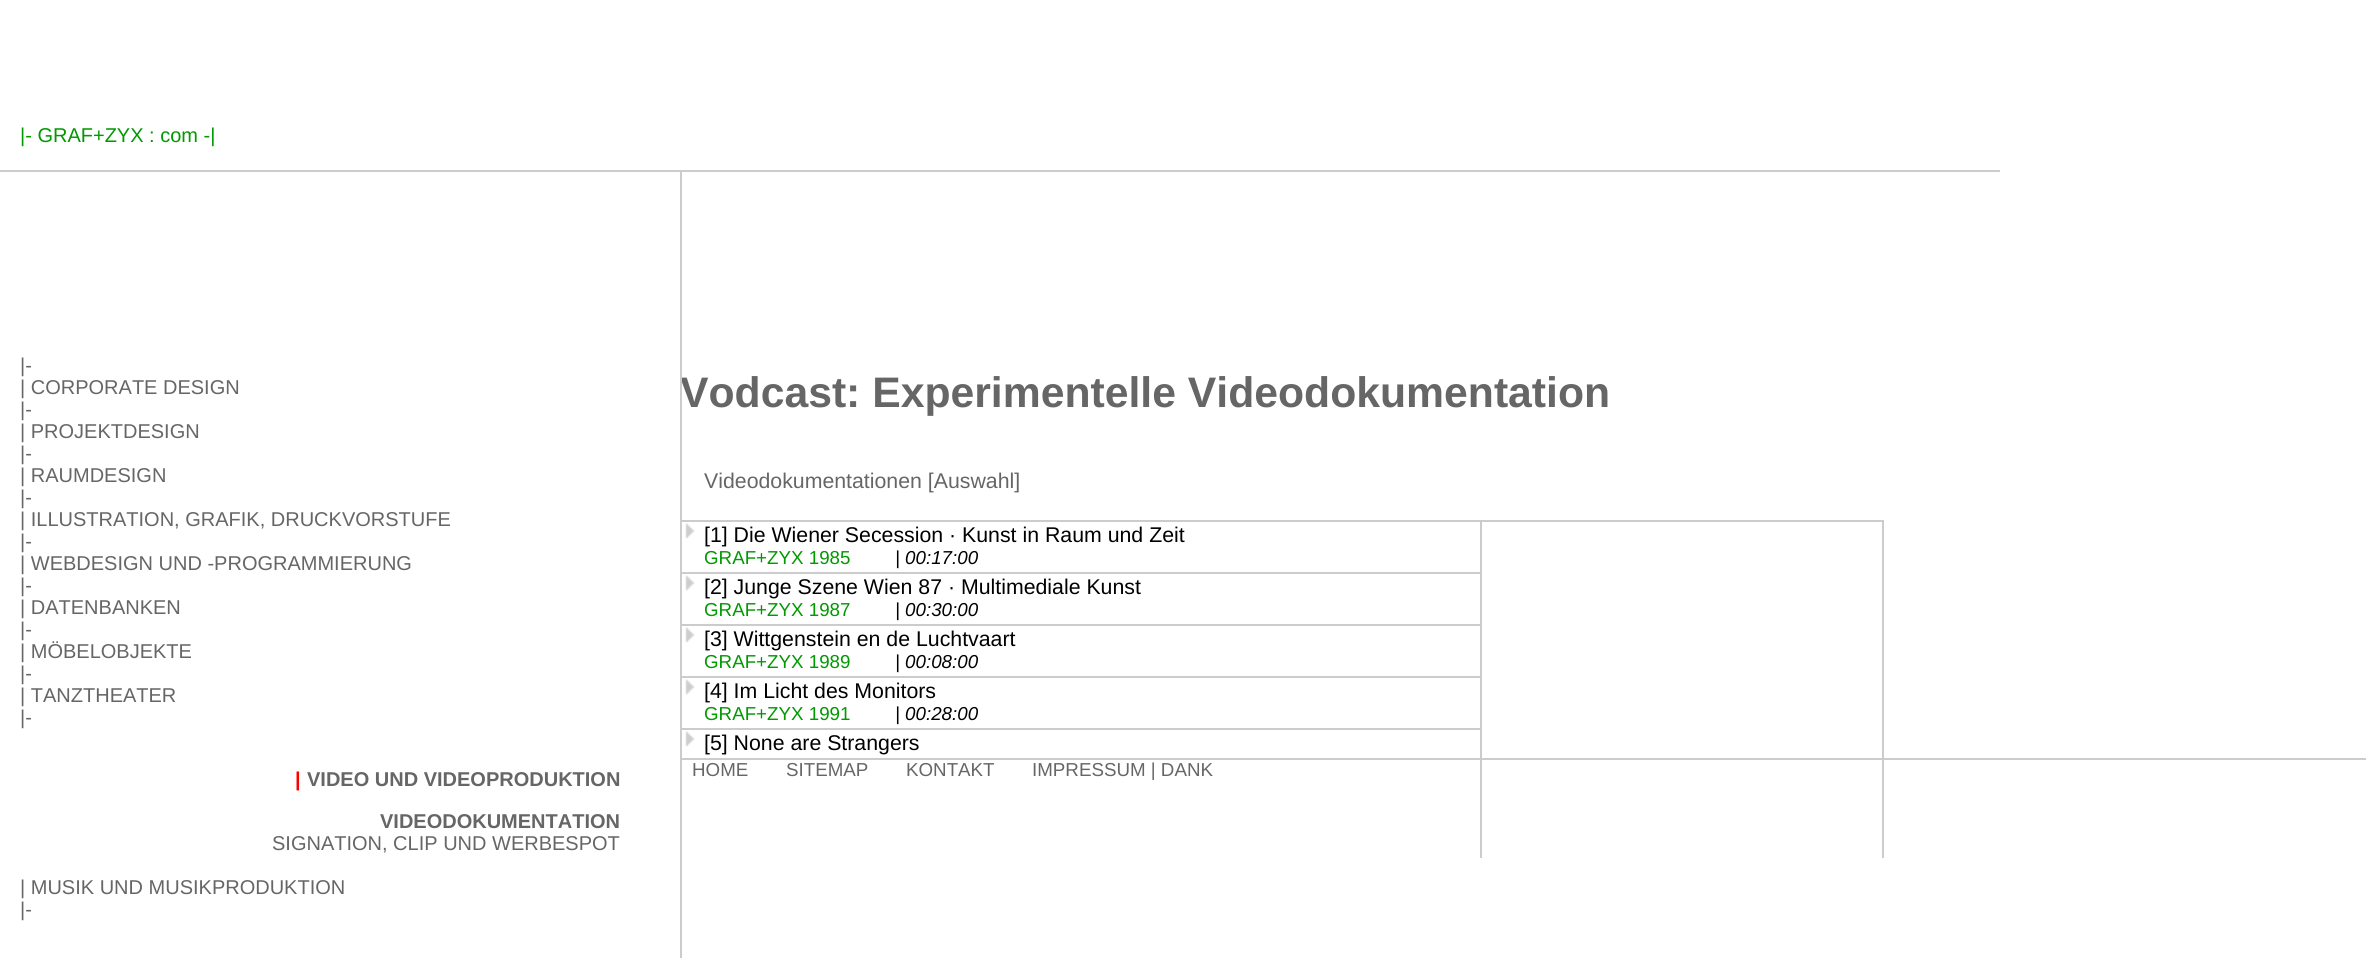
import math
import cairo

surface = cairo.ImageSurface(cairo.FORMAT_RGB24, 2366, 958)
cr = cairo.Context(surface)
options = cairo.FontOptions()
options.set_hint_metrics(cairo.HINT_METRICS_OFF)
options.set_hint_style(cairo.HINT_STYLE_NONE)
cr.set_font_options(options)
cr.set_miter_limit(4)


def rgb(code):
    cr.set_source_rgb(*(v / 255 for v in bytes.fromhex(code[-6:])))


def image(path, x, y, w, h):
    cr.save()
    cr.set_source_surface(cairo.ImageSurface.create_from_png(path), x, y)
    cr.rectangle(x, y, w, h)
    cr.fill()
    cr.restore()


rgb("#ffffff")
cr.paint()
rgb("#cccccc")
cr.rectangle(0, 170, 2000, 2)
cr.fill()
cr.rectangle(680, 520, 1204, 2)
cr.fill()
image("img/1.png", 685, 523, 10, 16)
cr.rectangle(680, 572, 800, 2)
cr.fill()
image("img/1.png", 685, 575, 10, 16)
cr.rectangle(680, 624, 800, 2)
cr.fill()
image("img/1.png", 685, 627, 10, 16)
cr.rectangle(680, 676, 800, 2)
cr.fill()
image("img/1.png", 685, 679, 10, 16)
cr.rectangle(680, 728, 800, 2)
cr.fill()
image("img/1.png", 685, 731, 10, 16)
for x, y, w, h, color in [
    (682, 758, 1684, 2, "#cccccc"),
    (1882, 520, 2, 338, "#cccccc"),
    (1480, 520, 2, 338, "#cccccc"),
]:
    rgb(color)
    cr.rectangle(x, y, w, h)
    cr.fill()
cr.select_font_face("Liberation Sans")
cr.set_font_size(20)
rgb("#009900")
cr.move_to(20, 142)
cr.show_text("|- GRAF+ZYX : com -|")
rgb("#666666")
for x, y, s in [
    (20, 372, "|-"),
    (20, 394, "| CORPORATE DESIGN"),
    (20, 416, "|-"),
    (20, 438, "| PROJEKTDESIGN"),
    (20, 460, "|-"),
    (20, 482, "| RAUMDESIGN"),
    (20, 504, "|-"),
    (20, 526, "| ILLUSTRATION, GRAFIK, DRUCKVORSTUFE"),
    (20, 548, "|-"),
    (20, 570, "| WEBDESIGN UND -PROGRAMMIERUNG"),
    (20, 592, "|-"),
    (20, 614, "| DATENBANKEN"),
    (20, 636, "|-"),
    (20, 658, "| MÖBELOBJEKTE"),
    (20, 680, "|-"),
    (20, 702, "| TANZTHEATER"),
    (20, 724, "|-"),
]:
    cr.move_to(x, y)
    cr.show_text(s)
cr.select_font_face("Liberation Sans", cairo.FONT_SLANT_NORMAL, cairo.FONT_WEIGHT_BOLD)
rgb("#ff0000")
cr.move_to(295, 786)
cr.show_text("|")
rgb("#666666")
cr.move_to(307, 786)
cr.show_text("VIDEO UND VIDEOPRODUKTION")
cr.move_to(380, 828)
cr.show_text("VIDEODOKUMENTATION")
cr.select_font_face("Liberation Sans")
for x, y, s in [
    (272, 850, "SIGNATION, CLIP UND WERBESPOT"),
    (20, 894, "| MUSIK UND MUSIKPRODUKTION"),
    (20, 916, "|-"),
]:
    cr.move_to(x, y)
    cr.show_text(s)
cr.select_font_face("Liberation Sans", cairo.FONT_SLANT_NORMAL, cairo.FONT_WEIGHT_BOLD)
cr.set_font_size(42.7)
cr.move_to(680, 407)
cr.show_text("Vodcast: Experimentelle Videodokumentation")
rgb("#cccccc")
cr.rectangle(680, 172, 2, 786)
cr.fill()
cr.select_font_face("Liberation Sans")
cr.set_font_size(21.3)
rgb("#666666")
cr.move_to(704, 488)
cr.show_text("Videodokumentationen [Auswahl]")
rgb("#000000")
cr.move_to(704, 542)
cr.show_text("[1] Die Wiener Secession · Kunst in Raum und Zeit")
cr.set_font_size(18.75)
rgb("#009900")
cr.move_to(704, 564)
cr.show_text("GRAF+ZYX 1985")
cr.select_font_face("Liberation Sans", cairo.FONT_SLANT_ITALIC)
rgb("#000000")
cr.move_to(895, 564)
cr.show_text("| 00:17:00")
cr.select_font_face("Liberation Sans")
cr.set_font_size(21.3)
cr.move_to(704, 594)
cr.show_text("[2] Junge Szene Wien 87 · Multimediale Kunst")
cr.set_font_size(18.75)
rgb("#009900")
cr.move_to(704, 616)
cr.show_text("GRAF+ZYX 1987")
cr.select_font_face("Liberation Sans", cairo.FONT_SLANT_ITALIC)
rgb("#000000")
cr.move_to(895, 616)
cr.show_text("| 00:30:00")
cr.select_font_face("Liberation Sans")
cr.set_font_size(21.3)
cr.move_to(704, 646)
cr.show_text("[3] Wittgenstein en de Luchtvaart")
cr.set_font_size(18.75)
rgb("#009900")
cr.move_to(704, 668)
cr.show_text("GRAF+ZYX 1989")
cr.select_font_face("Liberation Sans", cairo.FONT_SLANT_ITALIC)
rgb("#000000")
cr.move_to(895, 668)
cr.show_text("| 00:08:00")
cr.select_font_face("Liberation Sans")
cr.set_font_size(21.3)
cr.move_to(704, 698)
cr.show_text("[4] Im Licht des Monitors")
cr.set_font_size(18.75)
rgb("#009900")
cr.move_to(704, 720)
cr.show_text("GRAF+ZYX 1991")
cr.select_font_face("Liberation Sans", cairo.FONT_SLANT_ITALIC)
rgb("#000000")
cr.move_to(895, 720)
cr.show_text("| 00:28:00")
cr.select_font_face("Liberation Sans")
cr.set_font_size(21.3)
cr.move_to(704, 750)
cr.show_text("[5] None are Strangers")
cr.set_font_size(18.75)
rgb("#666666")
for x, y, s in [
    (692, 776, "HOME"),
    (786, 776, "SITEMAP"),
    (906, 776, "KONTAKT"),
    (1032, 776, "IMPRESSUM | DANK"),
]:
    cr.move_to(x, y)
    cr.show_text(s)
surface.write_to_png("page.png")
